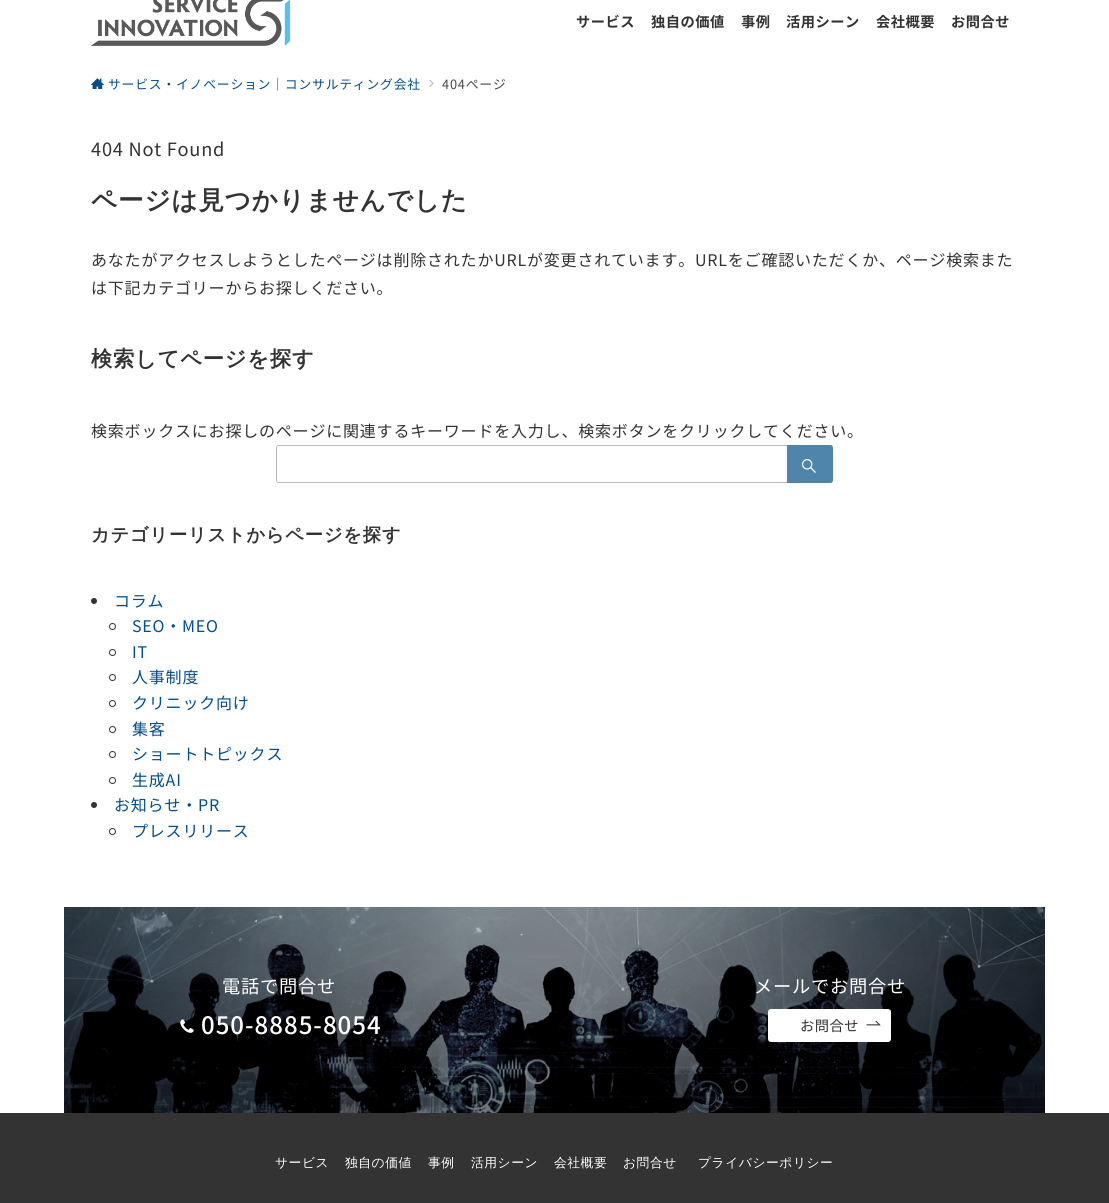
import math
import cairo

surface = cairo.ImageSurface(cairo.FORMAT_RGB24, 1109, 1203)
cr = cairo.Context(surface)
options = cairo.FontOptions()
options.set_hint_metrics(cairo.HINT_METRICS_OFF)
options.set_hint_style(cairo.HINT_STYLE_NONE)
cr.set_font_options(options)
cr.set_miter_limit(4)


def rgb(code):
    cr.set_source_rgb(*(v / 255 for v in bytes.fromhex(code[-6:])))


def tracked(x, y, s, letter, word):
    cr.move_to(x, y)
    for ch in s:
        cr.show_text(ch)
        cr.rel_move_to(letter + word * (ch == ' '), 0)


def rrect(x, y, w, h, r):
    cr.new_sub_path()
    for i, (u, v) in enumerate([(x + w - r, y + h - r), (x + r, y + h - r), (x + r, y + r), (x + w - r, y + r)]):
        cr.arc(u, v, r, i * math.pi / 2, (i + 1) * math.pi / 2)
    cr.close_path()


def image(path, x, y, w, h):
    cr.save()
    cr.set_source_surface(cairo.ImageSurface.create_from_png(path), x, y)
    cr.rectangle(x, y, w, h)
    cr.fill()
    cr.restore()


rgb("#ffffff")
cr.paint()
image("img/1.png", 91, 0, 199, 46)
image("img/2.png", 91, 78, 13, 11)
image("img/3.png", 429, 79, 5, 8)
rrect(276.5, 445.5, 556, 37, 2.5)
rgb("#b8bcc0")
cr.set_line_width(1)
cr.stroke()
rgb("#4f85ab")
cr.new_path()
cr.move_to(787.5, 445.5)
cr.line_to(830, 445.5)
cr.curve_to(831.5, 445.5, 832.5, 446.5, 832.5, 448)
cr.line_to(832.5, 480)
cr.curve_to(832.5, 481.5, 831.5, 482.5, 830, 482.5)
cr.line_to(787.5, 482.5)
cr.close_path()
cr.fill_preserve()
cr.stroke()
image("img/4.png", 802, 459, 14, 14)
rgb("#333333")
cr.arc(94, 601, 3, 0, 2 * math.pi)
cr.fill()
cr.arc(112.5, 626.5, 3, 0, 2 * math.pi)
cr.stroke()
cr.arc(112.5, 652.5, 3, 0, 2 * math.pi)
cr.stroke()
cr.arc(112.5, 677.5, 3, 0, 2 * math.pi)
cr.stroke()
cr.arc(112.5, 703.5, 3, 0, 2 * math.pi)
cr.stroke()
cr.arc(112.5, 729.5, 3, 0, 2 * math.pi)
cr.stroke()
cr.arc(112.5, 754.5, 3, 0, 2 * math.pi)
cr.stroke()
cr.arc(112.5, 780.5, 3, 0, 2 * math.pi)
cr.stroke()
cr.arc(94, 805, 3, 0, 2 * math.pi)
cr.fill()
cr.arc(112.5, 831.5, 3, 0, 2 * math.pi)
cr.stroke()
image("img/5.png", 64, 907, 981, 206)
image("img/6.png", 180, 1019, 14, 14)
rgb("#ffffff")
rrect(768, 1009, 123, 33, 3)
cr.fill()
image("img/7.png", 866, 1020, 15, 6)
rgb("#333333")
cr.rectangle(0, 1113, 1109, 90)
cr.fill()
cr.select_font_face("Noto Sans JP", cairo.FONT_SLANT_NORMAL, cairo.FONT_WEIGHT_BOLD)
cr.set_font_size(14.25)
for x, y, s in [
    (576, 27, "サービス"),
    (651, 27, "独自の価値"),
    (741, 27, "事例"),
    (786, 27, "活用シーン"),
    (876, 27, "会社概要"),
    (951, 27, "お問合せ"),
]:
    tracked(x, y, s, 0.5, 0)
cr.select_font_face("Noto Sans JP")
cr.set_font_size(12.8)
rgb("#004e8e")
tracked(108, 89, "サービス・イノベーション｜コンサルティング会社", 0.8, 0)
rgb("#484848")
tracked(442, 89, "404ページ", 0.8, 0)
cr.set_font_size(18.25)
rgb("#333333")
tracked(91, 156, "404 Not Found", 0.75, 0)
cr.select_font_face("WenQuanYi Zen Hei", cairo.FONT_SLANT_NORMAL, cairo.FONT_WEIGHT_BOLD)
cr.set_font_size(25.6)
tracked(91, 209, "ページは見つかりませんでした", 0.8, 0)
cr.select_font_face("Noto Sans JP")
cr.set_font_size(16)
tracked(91, 266, "あなたがアクセスしようとしたページは削除されたかURLが変更されています。URLをご確認いただくか、ページ検索また", 0.8, 0)
tracked(91, 294, "は下記カテゴリーからお探しください。", 0.8, 0)
cr.select_font_face("WenQuanYi Zen Hei", cairo.FONT_SLANT_NORMAL, cairo.FONT_WEIGHT_BOLD)
cr.set_font_size(21.25)
tracked(91, 366, "検索してページを探す", 0.8, 0)
cr.select_font_face("Noto Sans JP")
cr.set_font_size(16)
tracked(91, 437, "検索ボックスにお探しのページに関連するキーワードを入力し、検索ボタンをクリックしてください。", 0.8, 0)
cr.select_font_face("WenQuanYi Zen Hei", cairo.FONT_SLANT_NORMAL, cairo.FONT_WEIGHT_BOLD)
cr.set_font_size(18.25)
tracked(91, 541, "カテゴリーリストからページを探す", 0.8, 0)
cr.select_font_face("Noto Sans JP")
cr.set_font_size(16)
rgb("#004e8e")
for x, y, s in [
    (114, 607, "コラム"),
    (132, 632, "SEO・MEO"),
    (132, 658, "IT"),
    (132, 683, "人事制度"),
    (132, 709, "クリニック向け"),
    (132, 735, "集客"),
    (132, 760, "ショートトピックス"),
    (132, 786, "生成AI"),
    (114, 811, "お知らせ・PR"),
    (132, 837, "プレスリリース"),
]:
    tracked(x, y, s, 0.8, 0)
cr.set_font_size(18.25)
rgb("#ffffff")
tracked(222, 993, "電話で問合せ", 0.75, 0)
cr.select_font_face("Noto Sans JP Medium")
cr.set_font_size(24)
tracked(201, 1034, "050-8885-8054", 1, 0)
cr.select_font_face("Noto Sans JP")
cr.set_font_size(18.25)
tracked(754, 993, "メールでお問合せ", 0.75, 0)
cr.set_font_size(14.25)
rgb("#333333")
tracked(800, 1031, "お問合せ", 0.5, 0)
cr.select_font_face("WenQuanYi Zen Hei Medium")
cr.set_font_size(12.8)
rgb("#ffffff")
for x, y, s in [
    (275, 1167, "サービス"),
    (345, 1167, "独自の価値"),
    (428, 1167, "事例"),
    (471, 1167, "活用シーン"),
    (554, 1167, "会社概要"),
    (623, 1167, "お問合せ"),
    (698, 1167, "プライバシーポリシー"),
]:
    tracked(x, y, s, 0.5, 0)
surface.write_to_png("page.png")
